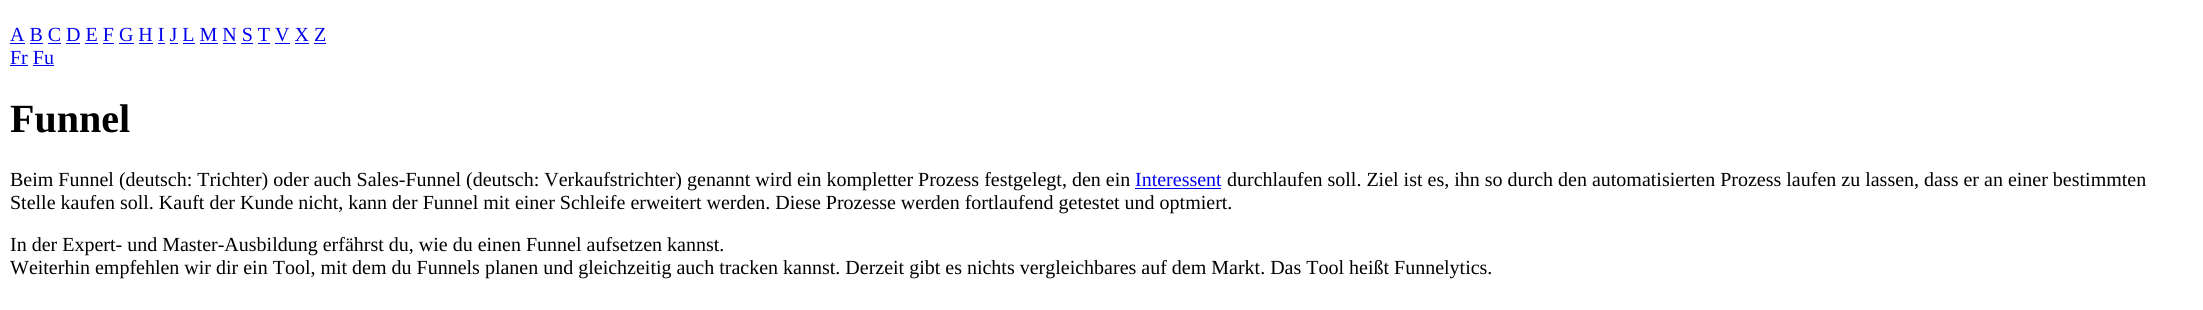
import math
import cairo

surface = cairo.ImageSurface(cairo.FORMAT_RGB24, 2203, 310)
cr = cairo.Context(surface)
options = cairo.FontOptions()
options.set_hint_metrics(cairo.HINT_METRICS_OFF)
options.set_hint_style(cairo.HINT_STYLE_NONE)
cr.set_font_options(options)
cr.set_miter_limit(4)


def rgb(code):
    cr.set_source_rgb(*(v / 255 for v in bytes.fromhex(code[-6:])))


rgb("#ffffff")
cr.paint()
for x, y, w, h, color in [
    (10, 43, 15, 1, "#0000ee"),
    (30, 43, 13, 1, "#0000ee"),
    (48, 43, 13, 1, "#0000ee"),
    (66, 43, 14, 1, "#0000ee"),
    (85, 43, 13, 1, "#0000ee"),
    (103, 43, 11, 1, "#0000ee"),
    (119, 43, 15, 1, "#0000ee"),
    (139, 43, 14, 1, "#0000ee"),
    (158, 43, 7, 1, "#0000ee"),
    (170, 43, 8, 1, "#0000ee"),
    (183, 43, 12, 1, "#0000ee"),
    (200, 43, 18, 1, "#0000ee"),
    (223, 43, 13, 1, "#0000ee"),
    (241, 43, 12, 1, "#0000ee"),
    (258, 43, 12, 1, "#0000ee"),
    (275, 43, 15, 1, "#0000ee"),
    (295, 43, 14, 1, "#0000ee"),
    (314, 43, 12, 1, "#0000ee"),
    (10, 65, 18, 1, "#0000ee"),
    (33, 65, 21, 1, "#0000ee"),
    (1135, 188, 86, 1, "#0000ee"),
]:
    rgb(color)
    cr.rectangle(x, y, w, h)
    cr.fill()
cr.select_font_face("Liberation Serif")
cr.set_font_size(20)
cr.move_to(10, 41)
cr.show_text("A B C D E F G H I J L M N S T V X Z")
cr.move_to(10, 64)
cr.show_text("Fr Fu")
cr.select_font_face("Liberation Serif", cairo.FONT_SLANT_NORMAL, cairo.FONT_WEIGHT_BOLD)
cr.set_font_size(40)
rgb("#000000")
cr.move_to(10, 132)
cr.show_text("Funnel")
cr.select_font_face("Liberation Serif")
cr.set_font_size(20)
cr.move_to(10, 186)
cr.show_text("Beim Funnel (deutsch: Trichter) oder auch Sales-Funnel (deutsch: Verkaufstrichter) genannt wird ein kompletter Prozess festgelegt, den ein")
rgb("#0000ee")
cr.move_to(1135, 186)
cr.show_text("Interessent")
rgb("#000000")
for x, y, s in [
    (1227, 186, "durchlaufen soll. Ziel ist es, ihn so durch den automatisierten Prozess laufen zu lassen, dass er an einer bestimmten"),
    (10, 209, "Stelle kaufen soll. Kauft der Kunde nicht, kann der Funnel mit einer Schleife erweitert werden. Diese Prozesse werden fortlaufend getestet und optmiert."),
    (10, 251, "In der Expert- und Master-Ausbildung erfährst du, wie du einen Funnel aufsetzen kannst."),
    (10, 274, "Weiterhin empfehlen wir dir ein Tool, mit dem du Funnels planen und gleichzeitig auch tracken kannst. Derzeit gibt es nichts vergleichbares auf dem Markt. Das Tool heißt Funnelytics."),
]:
    cr.move_to(x, y)
    cr.show_text(s)
surface.write_to_png("page.png")
